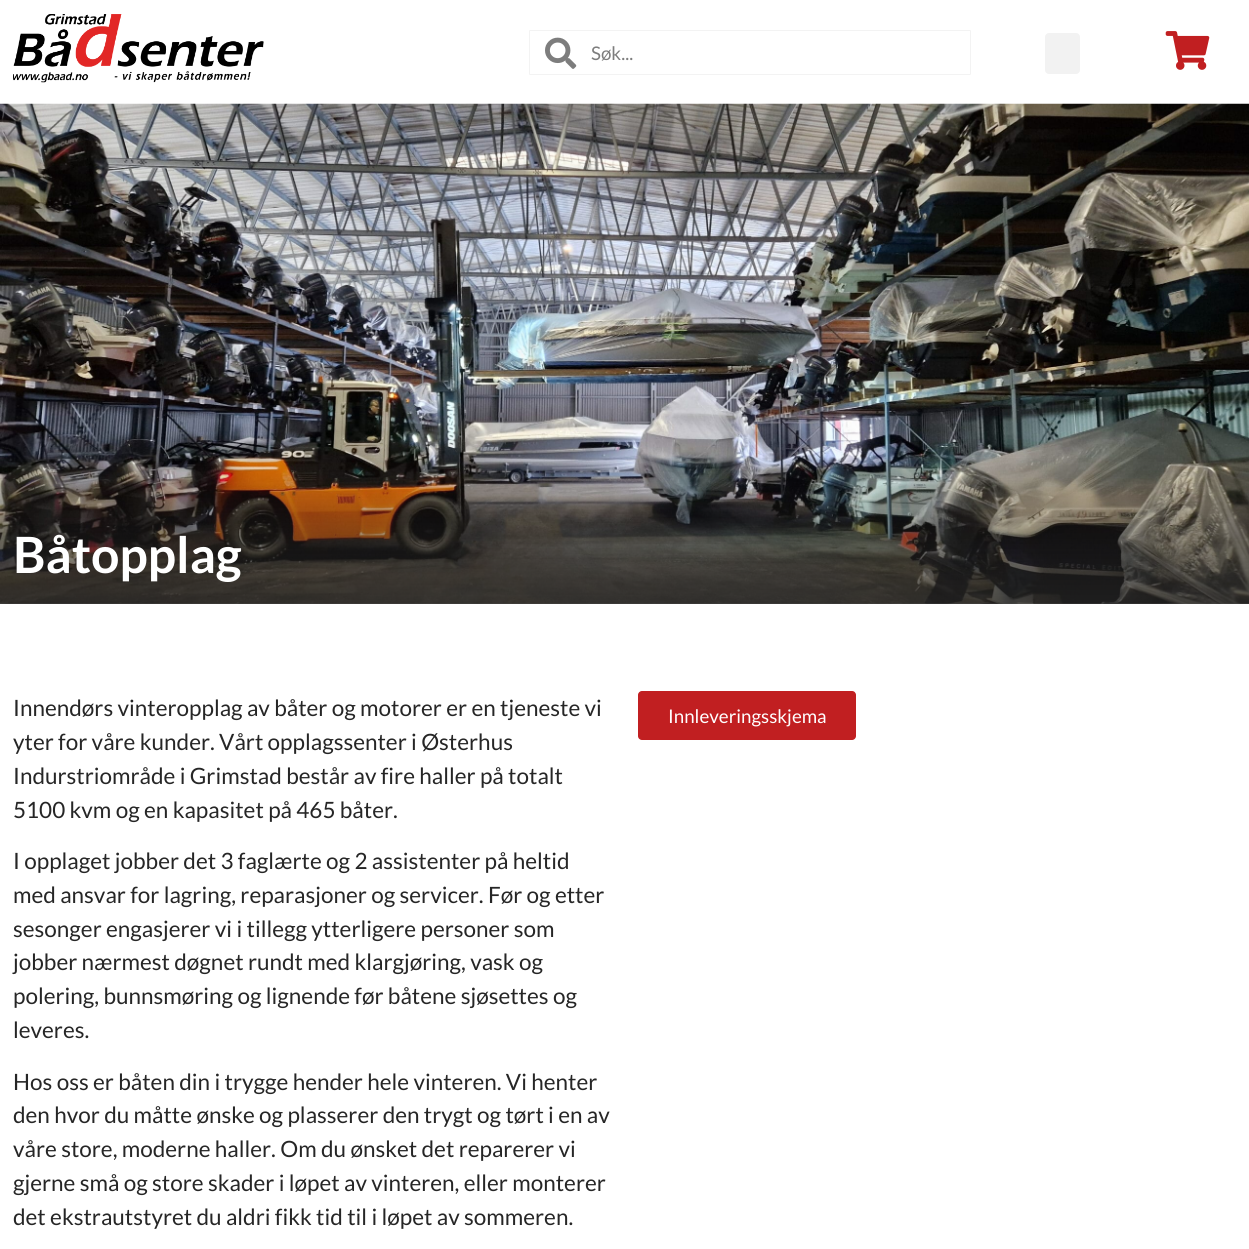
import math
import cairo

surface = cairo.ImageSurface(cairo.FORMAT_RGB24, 1249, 1249)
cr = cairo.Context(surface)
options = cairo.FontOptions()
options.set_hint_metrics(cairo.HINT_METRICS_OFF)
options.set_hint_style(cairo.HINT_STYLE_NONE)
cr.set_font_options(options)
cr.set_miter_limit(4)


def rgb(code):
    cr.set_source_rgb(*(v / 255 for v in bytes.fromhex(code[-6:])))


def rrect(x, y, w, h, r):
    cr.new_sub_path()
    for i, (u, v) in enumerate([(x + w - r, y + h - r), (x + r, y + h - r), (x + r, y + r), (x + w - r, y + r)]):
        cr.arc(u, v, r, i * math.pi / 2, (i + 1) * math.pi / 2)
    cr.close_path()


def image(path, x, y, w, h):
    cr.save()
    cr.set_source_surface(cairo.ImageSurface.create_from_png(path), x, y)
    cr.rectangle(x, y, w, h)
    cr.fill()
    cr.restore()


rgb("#ffffff")
cr.paint()
image("img/1.png", 13, 14, 251, 69)
rrect(529.5, 30.5, 441, 44, 0.5)
rgb("#f3f3f3")
cr.set_line_width(1)
cr.stroke()
image("img/2.png", 545, 37, 32, 32)
rgb("#f2f2f2")
rrect(1045, 33, 35, 41, 4)
cr.fill()
image("img/3.png", 1165, 31, 45, 39)
image("img/4.png", 0, 103, 1249, 501)
gradient = cairo.LinearGradient(625, 104, 625, 604)
gradient.add_color_stop_rgba(0.7, 0.149, 0.149, 0.149, 0)
gradient.add_color_stop_rgba(1, 0.149, 0.149, 0.149, 0.77)
cr.set_source(gradient)
cr.rectangle(0, 458, 1249, 146)
cr.fill()
rgb("#c11f21")
rrect(638, 691, 218, 49, 4)
cr.fill()
cr.select_font_face("Lato")
cr.set_font_size(18.75)
rgb("#7d7d7d")
cr.move_to(591, 60)
cr.show_text("Søk...")
cr.select_font_face("Lato", cairo.FONT_SLANT_NORMAL, cairo.FONT_WEIGHT_BOLD)
cr.set_font_size(50)
rgb("#ffffff")
cr.move_to(13, 573)
cr.show_text("Båtopplag")
cr.select_font_face("Lato")
cr.set_font_size(22.5)
rgb("#262626")
for x, y, s in [
    (13, 716, "Innendørs vinteropplag av båter og motorer er en tjeneste vi"),
    (13, 750, "yter for våre kunder. Vårt opplagssenter i Østerhus"),
    (13, 784, "Indurstriområde i Grimstad består av fire haller på totalt"),
    (13, 818, "5100 kvm og en kapasitet på 465 båter."),
    (13, 869, "I opplaget jobber det 3 faglærte og 2 assistenter på heltid"),
    (13, 903, "med ansvar for lagring, reparasjoner og servicer. Før og etter"),
    (13, 937, "sesonger engasjerer vi i tillegg ytterligere personer som"),
    (13, 970, "jobber nærmest døgnet rundt med klargjøring, vask og"),
    (13, 1004, "polering, bunnsmøring og lignende før båtene sjøsettes og"),
    (13, 1038, "leveres."),
    (13, 1090, "Hos oss er båten din i trygge hender hele vinteren. Vi henter"),
    (13, 1123, "den hvor du måtte ønske og plasserer den trygt og tørt i en av"),
    (13, 1157, "våre store, moderne haller. Om du ønsket det reparerer vi"),
    (13, 1191, "gjerne små og store skader i løpet av vinteren, eller monterer"),
    (13, 1225, "det ekstrautstyret du aldri fikk tid til i løpet av sommeren."),
]:
    cr.move_to(x, y)
    cr.show_text(s)
cr.set_font_size(18.75)
rgb("#ffffff")
cr.move_to(668, 723)
cr.show_text("Innleveringsskjema")
surface.write_to_png("page.png")
